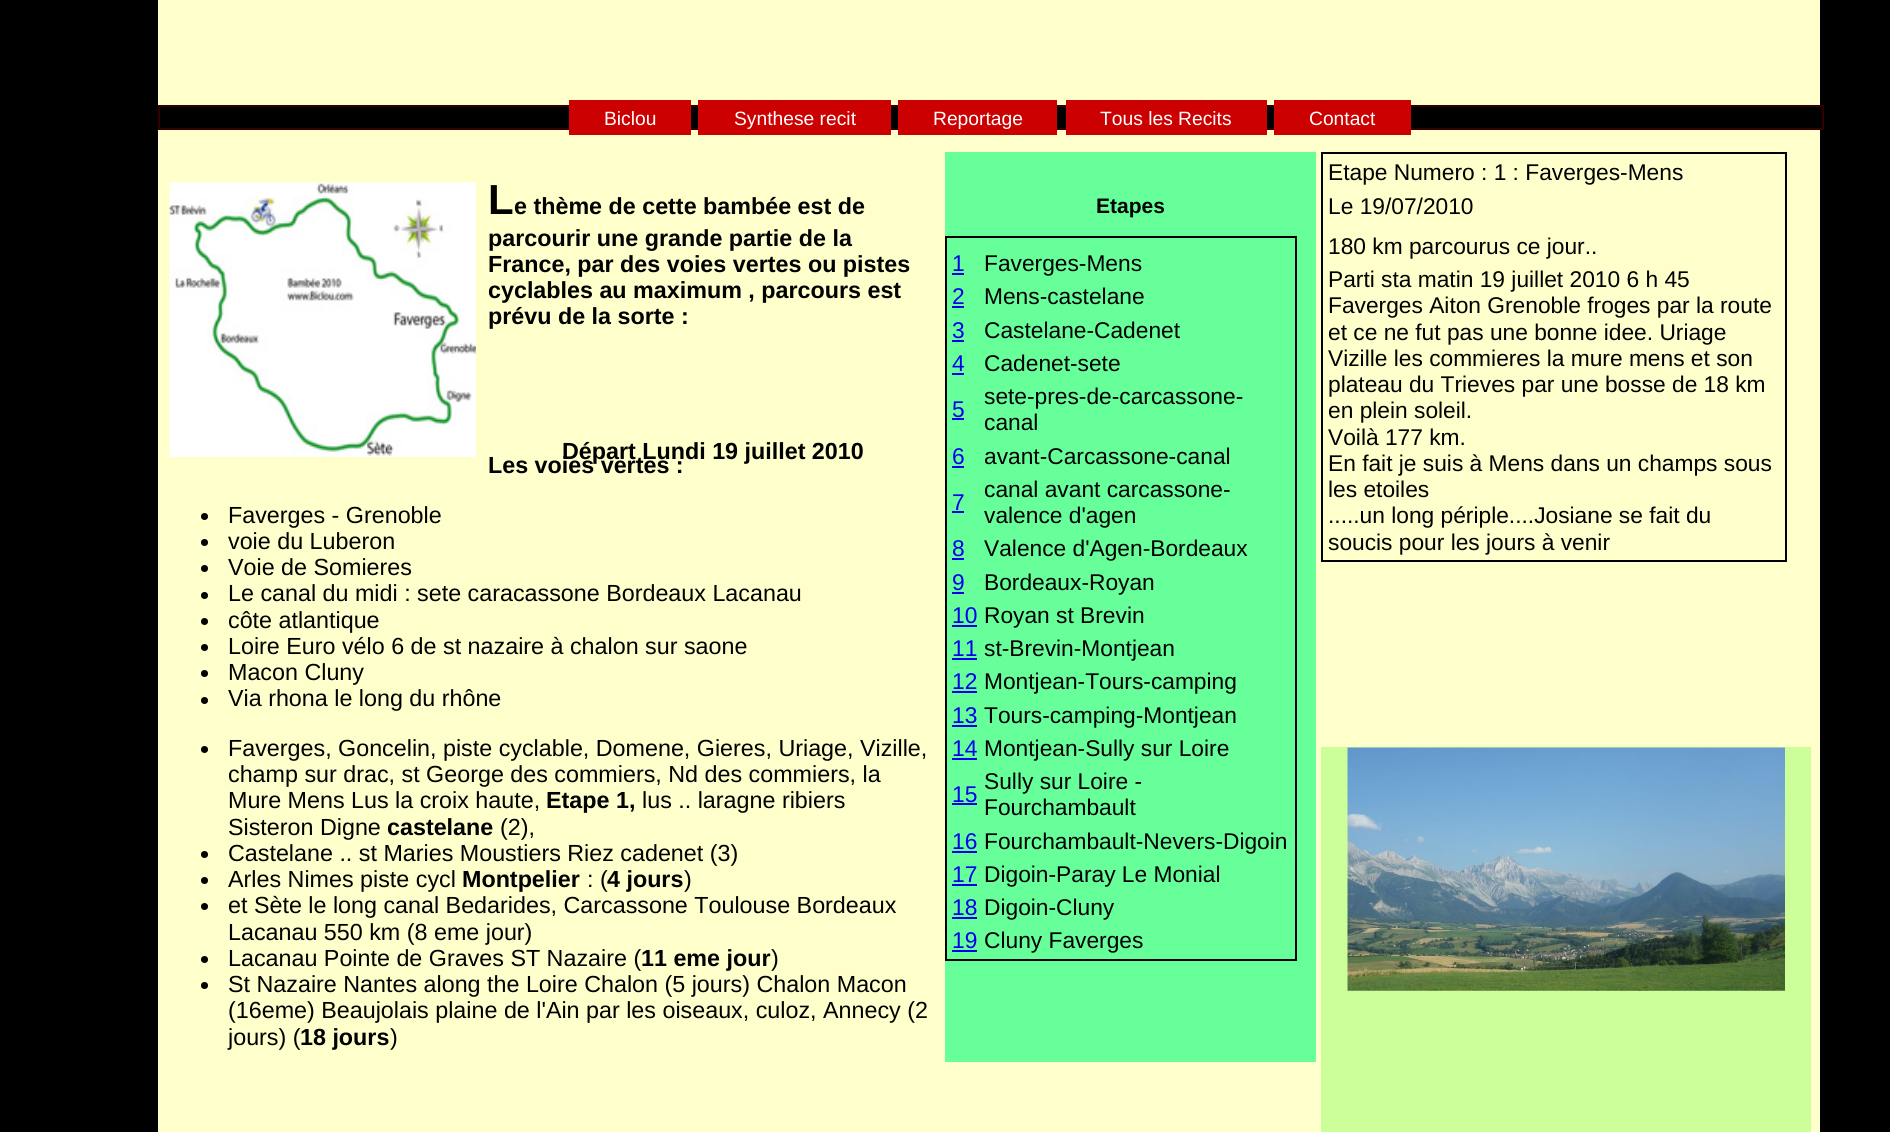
import math
import cairo

surface = cairo.ImageSurface(cairo.FORMAT_RGB24, 1890, 1132)
cr = cairo.Context(surface)
options = cairo.FontOptions()
options.set_hint_metrics(cairo.HINT_METRICS_OFF)
options.set_hint_style(cairo.HINT_STYLE_NONE)
cr.set_font_options(options)
cr.set_miter_limit(4)


def rgb(code):
    cr.set_source_rgb(*(v / 255 for v in bytes.fromhex(code[-6:])))


def image(path, x, y, w, h):
    cr.save()
    cr.set_source_surface(cairo.ImageSurface.create_from_png(path), x, y)
    cr.rectangle(x, y, w, h)
    cr.fill()
    cr.restore()


rgb("#000000")
cr.paint()
rgb("#ffffcc")
cr.rectangle(158, 0, 1662, 1132)
cr.fill()
rgb("#000000")
cr.rectangle(160, 107, 1660, 21)
cr.fill()
cr.rectangle(159, 106, 1664, 23)
rgb("#330000")
cr.stroke()
for x, y, w, h, color in [
    (569, 100, 122, 35, "#cc0000"),
    (698, 100, 193, 35, "#cc0000"),
    (898, 100, 159, 35, "#cc0000"),
    (1066, 100, 201, 35, "#cc0000"),
    (1274, 100, 137, 35, "#cc0000"),
]:
    rgb(color)
    cr.rectangle(x, y, w, h)
    cr.fill()
image("img/1.png", 169, 182, 307, 275)
rgb("#000000")
cr.arc(204.5, 516.5, 3.5, 0, 2 * math.pi)
cr.fill()
cr.arc(204.5, 542.5, 3.5, 0, 2 * math.pi)
cr.fill()
cr.arc(204.5, 568.5, 3.5, 0, 2 * math.pi)
cr.fill()
cr.arc(204.5, 595.5, 3.5, 0, 2 * math.pi)
cr.fill()
cr.arc(204.5, 621.5, 3.5, 0, 2 * math.pi)
cr.fill()
cr.arc(204.5, 647.5, 3.5, 0, 2 * math.pi)
cr.fill()
cr.arc(204.5, 673.5, 3.5, 0, 2 * math.pi)
cr.fill()
cr.arc(204.5, 700.5, 3.5, 0, 2 * math.pi)
cr.fill()
cr.arc(204.5, 749.5, 3.5, 0, 2 * math.pi)
cr.fill()
cr.arc(204.5, 854.5, 3.5, 0, 2 * math.pi)
cr.fill()
cr.arc(204.5, 880.5, 3.5, 0, 2 * math.pi)
cr.fill()
cr.arc(204.5, 906.5, 3.5, 0, 2 * math.pi)
cr.fill()
cr.arc(204.5, 959.5, 3.5, 0, 2 * math.pi)
cr.fill()
cr.arc(204.5, 985.5, 3.5, 0, 2 * math.pi)
cr.fill()
rgb("#66ff99")
cr.rectangle(945, 152, 371, 910)
cr.fill()
cr.rectangle(946, 237, 350, 723)
rgb("#000000")
cr.stroke()
for x, y, w, h, color in [
    (952, 273, 12, 2, "#0000ee"),
    (952, 306, 12, 2, "#0000ee"),
    (952, 340, 12, 2, "#0000ee"),
    (952, 373, 12, 2, "#0000ee"),
    (952, 418, 12, 2, "#0000ee"),
    (952, 466, 12, 2, "#0000ee"),
    (952, 511, 12, 2, "#0000ee"),
    (952, 558, 12, 2, "#0000ee"),
    (952, 592, 12, 2, "#0000ee"),
    (952, 625, 25, 2, "#0000ee"),
    (952, 658, 25, 2, "#0000ee"),
    (952, 691, 25, 2, "#0000ee"),
    (952, 725, 25, 2, "#0000ee"),
    (952, 758, 25, 2, "#0000ee"),
    (952, 803, 25, 2, "#0000ee"),
    (952, 851, 25, 2, "#0000ee"),
    (952, 884, 25, 2, "#0000ee"),
    (952, 917, 25, 2, "#0000ee"),
    (952, 950, 25, 2, "#0000ee"),
]:
    rgb(color)
    cr.rectangle(x, y, w, h)
    cr.fill()
cr.rectangle(1322, 153, 464, 408)
rgb("#000000")
cr.stroke()
rgb("#ccff99")
cr.rectangle(1321, 747, 490, 385)
cr.fill()
image("img/2.png", 1347, 747, 438, 244)
cr.select_font_face("Liberation Sans")
cr.set_font_size(19.25)
rgb("#ffffff")
for x, y, s in [
    (604, 125, "Biclou"),
    (734, 125, "Synthese recit"),
    (933, 125, "Reportage"),
    (1100, 125, "Tous les Recits"),
    (1309, 125, "Contact"),
]:
    cr.move_to(x, y)
    cr.show_text(s)
cr.select_font_face("Liberation Sans", cairo.FONT_SLANT_NORMAL, cairo.FONT_WEIGHT_BOLD)
cr.set_font_size(42)
rgb("#000000")
cr.move_to(488, 214)
cr.show_text("L")
cr.set_font_size(23.3)
for x, y, s in [
    (514, 214, "e thème de cette bambée est de"),
    (488, 246, "parcourir une grande partie de la"),
    (488, 272, "France, par des voies vertes ou pistes"),
    (488, 298, "cyclables au maximum , parcours est"),
    (488, 324, "prévu de la sorte :"),
]:
    cr.move_to(x, y)
    cr.show_text(s)
cr.select_font_face("Liberation Sans")
for x, y, s in [
    (228, 523, "Faverges - Grenoble"),
    (228, 549, "voie du Luberon"),
    (228, 575, "Voie de Somieres"),
    (228, 601, "Le canal du midi : sete caracassone Bordeaux Lacanau"),
    (228, 628, "côte atlantique"),
    (228, 654, "Loire Euro vélo 6 de st nazaire à chalon sur saone"),
    (228, 680, "Macon Cluny"),
    (228, 706, "Via rhona le long du rhône"),
    (228, 756, "Faverges, Goncelin, piste cyclable, Domene, Gieres, Uriage, Vizille,"),
    (228, 782, "champ sur drac, st George des commiers, Nd des commiers, la"),
    (228, 808, "Mure Mens Lus la croix haute,"),
]:
    cr.move_to(x, y)
    cr.show_text(s)
cr.select_font_face("Liberation Sans", cairo.FONT_SLANT_NORMAL, cairo.FONT_WEIGHT_BOLD)
cr.move_to(546, 808)
cr.show_text("Etape 1,")
cr.select_font_face("Liberation Sans")
cr.move_to(642, 808)
cr.show_text("lus .. laragne ribiers")
cr.move_to(228, 835)
cr.show_text("Sisteron Digne")
cr.select_font_face("Liberation Sans", cairo.FONT_SLANT_NORMAL, cairo.FONT_WEIGHT_BOLD)
cr.move_to(387, 835)
cr.show_text("castelane")
cr.select_font_face("Liberation Sans")
for x, y, s in [
    (500, 835, "(2),"),
    (228, 861, "Castelane .. st Maries Moustiers Riez cadenet (3)"),
    (228, 887, "Arles Nimes piste cycl"),
]:
    cr.move_to(x, y)
    cr.show_text(s)
cr.select_font_face("Liberation Sans", cairo.FONT_SLANT_NORMAL, cairo.FONT_WEIGHT_BOLD)
cr.move_to(462, 887)
cr.show_text("Montpelier")
cr.select_font_face("Liberation Sans")
cr.move_to(587, 887)
cr.show_text(": (")
cr.select_font_face("Liberation Sans", cairo.FONT_SLANT_NORMAL, cairo.FONT_WEIGHT_BOLD)
cr.move_to(607, 887)
cr.show_text("4 jours")
cr.select_font_face("Liberation Sans")
for x, y, s in [
    (684, 887, ")"),
    (228, 913, "et Sète le long canal Bedarides, Carcassone Toulouse Bordeaux"),
    (228, 940, "Lacanau 550 km (8 eme jour)"),
    (228, 966, "Lacanau Pointe de Graves ST Nazaire ("),
]:
    cr.move_to(x, y)
    cr.show_text(s)
cr.select_font_face("Liberation Sans", cairo.FONT_SLANT_NORMAL, cairo.FONT_WEIGHT_BOLD)
cr.move_to(641, 966)
cr.show_text("11 eme jour")
cr.select_font_face("Liberation Sans")
for x, y, s in [
    (771, 966, ")"),
    (228, 992, "St Nazaire Nantes along the Loire Chalon (5 jours) Chalon Macon"),
    (228, 1018, "(16eme) Beaujolais plaine de l'Ain par les oiseaux, culoz, Annecy (2"),
    (228, 1045, "jours) ("),
]:
    cr.move_to(x, y)
    cr.show_text(s)
cr.select_font_face("Liberation Sans", cairo.FONT_SLANT_NORMAL, cairo.FONT_WEIGHT_BOLD)
cr.move_to(300, 1045)
cr.show_text("18 jours")
cr.select_font_face("Liberation Sans")
cr.move_to(390, 1045)
cr.show_text(")")
cr.select_font_face("Liberation Sans", cairo.FONT_SLANT_NORMAL, cairo.FONT_WEIGHT_BOLD)
cr.set_font_size(21)
cr.move_to(1096, 213)
cr.show_text("Etapes")
cr.select_font_face("Liberation Sans")
cr.set_font_size(22.75)
rgb("#0000ee")
cr.move_to(952, 271)
cr.show_text("1")
rgb("#000000")
cr.move_to(984, 271)
cr.show_text("Faverges-Mens")
rgb("#0000ee")
cr.move_to(952, 304)
cr.show_text("2")
rgb("#000000")
cr.move_to(984, 304)
cr.show_text("Mens-castelane")
rgb("#0000ee")
cr.move_to(952, 338)
cr.show_text("3")
rgb("#000000")
cr.move_to(984, 338)
cr.show_text("Castelane-Cadenet")
rgb("#0000ee")
cr.move_to(952, 371)
cr.show_text("4")
rgb("#000000")
cr.move_to(984, 371)
cr.show_text("Cadenet-sete")
rgb("#0000ee")
cr.move_to(952, 417)
cr.show_text("5")
rgb("#000000")
cr.move_to(984, 404)
cr.show_text("sete-pres-de-carcassone-")
cr.move_to(984, 430)
cr.show_text("canal")
rgb("#0000ee")
cr.move_to(952, 464)
cr.show_text("6")
rgb("#000000")
cr.move_to(984, 464)
cr.show_text("avant-Carcassone-canal")
rgb("#0000ee")
cr.move_to(952, 510)
cr.show_text("7")
rgb("#000000")
cr.move_to(984, 497)
cr.show_text("canal avant carcassone-")
cr.move_to(984, 523)
cr.show_text("valence d'agen")
rgb("#0000ee")
cr.move_to(952, 556)
cr.show_text("8")
rgb("#000000")
cr.move_to(984, 556)
cr.show_text("Valence d'Agen-Bordeaux")
rgb("#0000ee")
cr.move_to(952, 590)
cr.show_text("9")
rgb("#000000")
cr.move_to(984, 590)
cr.show_text("Bordeaux-Royan")
rgb("#0000ee")
cr.move_to(952, 623)
cr.show_text("10")
rgb("#000000")
cr.move_to(984, 623)
cr.show_text("Royan st Brevin")
rgb("#0000ee")
cr.move_to(952, 656)
cr.show_text("11")
rgb("#000000")
cr.move_to(984, 656)
cr.show_text("st-Brevin-Montjean")
rgb("#0000ee")
cr.move_to(952, 689)
cr.show_text("12")
rgb("#000000")
cr.move_to(984, 689)
cr.show_text("Montjean-Tours-camping")
rgb("#0000ee")
cr.move_to(952, 723)
cr.show_text("13")
rgb("#000000")
cr.move_to(984, 723)
cr.show_text("Tours-camping-Montjean")
rgb("#0000ee")
cr.move_to(952, 756)
cr.show_text("14")
rgb("#000000")
cr.move_to(984, 756)
cr.show_text("Montjean-Sully sur Loire")
rgb("#0000ee")
cr.move_to(952, 802)
cr.show_text("15")
rgb("#000000")
cr.move_to(984, 789)
cr.show_text("Sully sur Loire -")
cr.move_to(984, 815)
cr.show_text("Fourchambault")
rgb("#0000ee")
cr.move_to(952, 849)
cr.show_text("16")
rgb("#000000")
cr.move_to(984, 849)
cr.show_text("Fourchambault-Nevers-Digoin")
rgb("#0000ee")
cr.move_to(952, 882)
cr.show_text("17")
rgb("#000000")
cr.move_to(984, 882)
cr.show_text("Digoin-Paray Le Monial")
rgb("#0000ee")
cr.move_to(952, 915)
cr.show_text("18")
rgb("#000000")
cr.move_to(984, 915)
cr.show_text("Digoin-Cluny")
rgb("#0000ee")
cr.move_to(952, 948)
cr.show_text("19")
rgb("#000000")
for x, y, s in [
    (984, 948, "Cluny Faverges"),
    (1328, 180, "Etape Numero : 1 : Faverges-Mens"),
    (1328, 214, "Le 19/07/2010"),
    (1328, 254, "180 km parcourus ce jour.."),
    (1328, 287, "Parti sta matin 19 juillet 2010 6 h 45"),
    (1328, 313, "Faverges Aiton Grenoble froges par la route"),
    (1328, 340, "et ce ne fut pas une bonne idee. Uriage"),
    (1328, 366, "Vizille les commieres la mure mens et son"),
    (1328, 392, "plateau du Trieves par une bosse de 18 km"),
    (1328, 418, "en plein soleil."),
    (1328, 445, "Voilà 177 km."),
    (1328, 471, "En fait je suis à Mens dans un champs sous"),
    (1328, 497, "les etoiles"),
    (1328, 523, ".....un long périple....Josiane se fait du"),
    (1328, 550, "soucis pour les jours à venir"),
]:
    cr.move_to(x, y)
    cr.show_text(s)
cr.select_font_face("Liberation Sans", cairo.FONT_SLANT_NORMAL, cairo.FONT_WEIGHT_BOLD)
cr.set_font_size(23.3)
cr.move_to(562, 459)
cr.show_text("Départ Lundi 19 juillet 2010")
cr.move_to(488, 473)
cr.show_text("Les voies vertes :")
surface.write_to_png("page.png")
